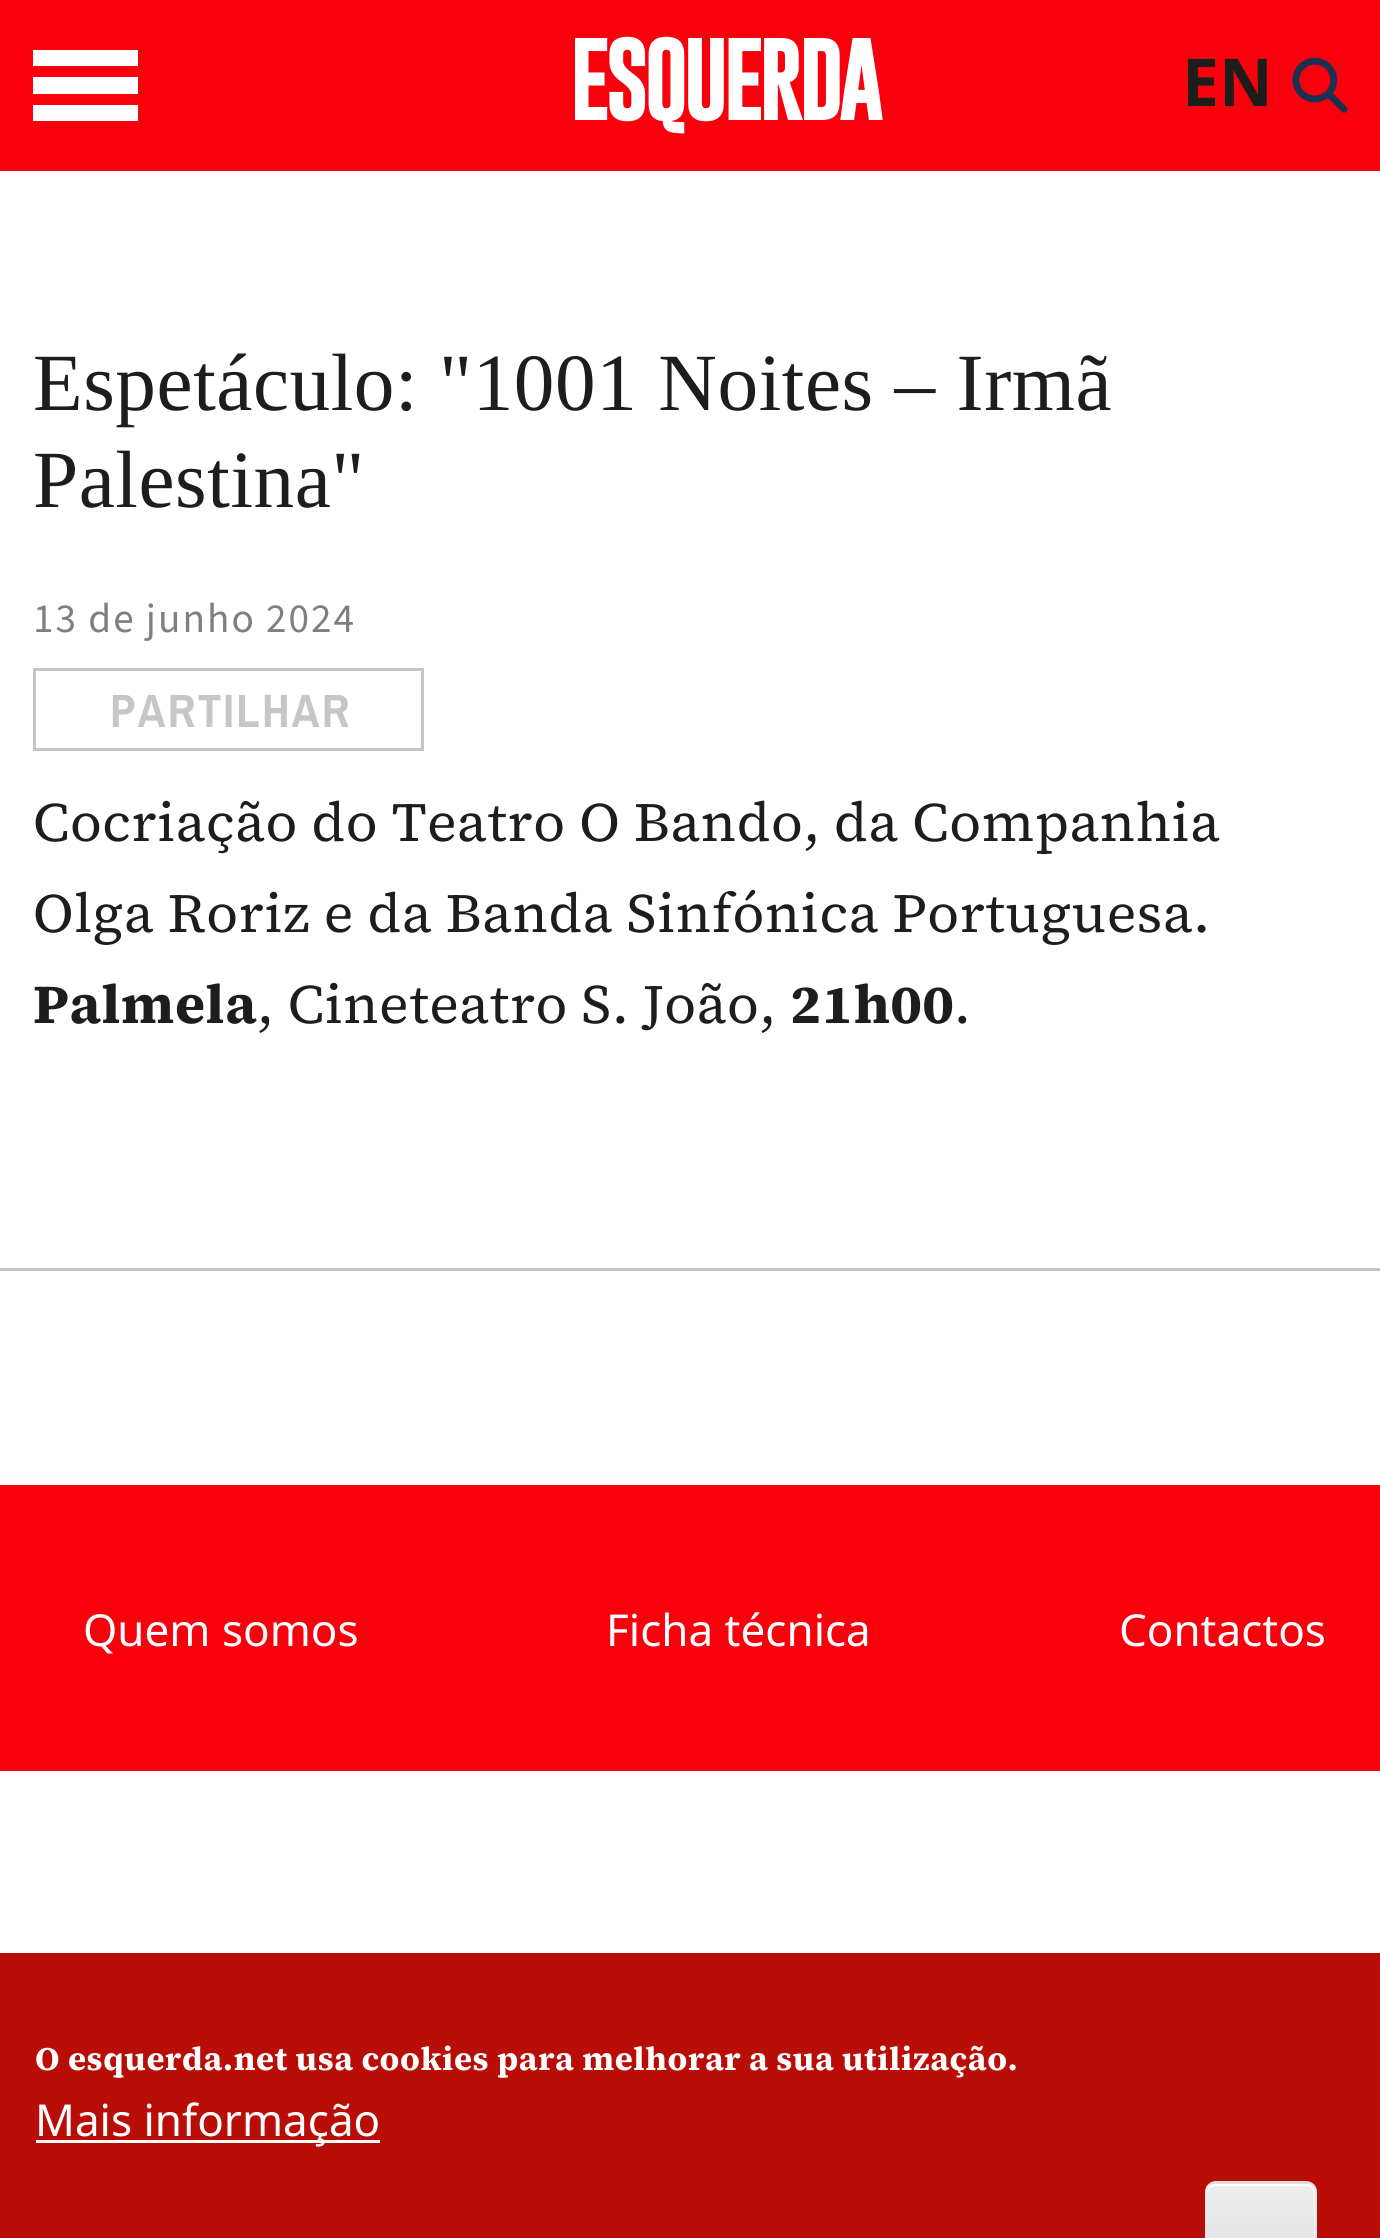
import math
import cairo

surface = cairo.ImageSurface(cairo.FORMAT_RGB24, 1380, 2238)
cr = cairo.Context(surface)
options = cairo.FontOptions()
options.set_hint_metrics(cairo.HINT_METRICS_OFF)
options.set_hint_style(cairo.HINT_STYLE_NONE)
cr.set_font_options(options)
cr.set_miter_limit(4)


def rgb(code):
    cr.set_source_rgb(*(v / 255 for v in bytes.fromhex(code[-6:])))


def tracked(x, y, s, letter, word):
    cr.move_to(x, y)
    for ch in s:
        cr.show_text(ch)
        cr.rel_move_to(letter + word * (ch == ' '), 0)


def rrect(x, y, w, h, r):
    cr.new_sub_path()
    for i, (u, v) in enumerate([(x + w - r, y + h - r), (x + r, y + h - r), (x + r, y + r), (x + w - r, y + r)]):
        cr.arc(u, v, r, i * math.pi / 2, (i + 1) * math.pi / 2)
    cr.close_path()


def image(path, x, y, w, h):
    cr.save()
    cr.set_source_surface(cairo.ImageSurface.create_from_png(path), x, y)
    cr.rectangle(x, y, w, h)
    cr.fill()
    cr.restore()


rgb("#ffffff")
cr.paint()
for x, y, w, h, color in [
    (0, 0, 1380, 171, "#f8000c"),
    (33, 77, 105, 17, "#ffffff"),
    (33, 50, 105, 16, "#ffffff"),
    (33, 105, 105, 16, "#ffffff"),
]:
    rgb(color)
    cr.rectangle(x, y, w, h)
    cr.fill()
image("img/1.png", 575, 36, 308, 98)
image("img/2.png", 1292, 57, 56, 56)
rgb("#c6c6c6")
cr.rectangle(0, 1268, 1380, 3)
cr.fill()
cr.rectangle(34.5, 669.5, 388, 80)
cr.set_line_width(3)
cr.stroke()
for x, y, w, h, color in [
    (0, 1485, 1380, 286, "#f8000c"),
    (0, 1953, 1380, 285, "#b90d08"),
    (36, 2140, 344, 3, "#ffffff"),
]:
    rgb(color)
    cr.rectangle(x, y, w, h)
    cr.fill()
cr.save()
rrect(1205, 2181, 112, 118, 11)
cr.clip()
gradient = cairo.LinearGradient(1261, 2071, 1261, 2184)
gradient.add_color_stop_rgba(0.05, 0.929, 0.929, 0.929, 1)
gradient.add_color_stop_rgba(1, 0.875, 0.875, 0.875, 1)
cr.set_source(gradient)
cr.rectangle(1205, 2181, 112, 3)
cr.fill()
gradient = cairo.LinearGradient(1261, 2184, 1261, 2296)
gradient.add_color_stop_rgba(0.05, 0.929, 0.929, 0.929, 1)
gradient.add_color_stop_rgba(1, 0.875, 0.875, 0.875, 1)
cr.set_source(gradient)
cr.rectangle(1205, 2184, 112, 54)
cr.fill()
cr.restore()
cr.new_path()
cr.move_to(1216, 2186)
cr.line_to(1308, 2186)
cr.curve_to(1318, 2188, 1314, 2205, 1314, 2210)
cr.line_to(1314, 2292)
cr.curve_to(1315, 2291, 1315, 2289, 1315, 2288)
cr.line_to(1315, 2192)
cr.curve_to(1315, 2188, 1311, 2184, 1307, 2184)
cr.line_to(1215, 2184)
cr.curve_to(1211, 2184, 1207, 2188, 1207, 2192)
cr.line_to(1207, 2194)
cr.curve_to(1207, 2190, 1211, 2186, 1216, 2186)
cr.close_path()
cr.fill()
cr.select_font_face("Noto Sans", cairo.FONT_SLANT_NORMAL, cairo.FONT_WEIGHT_BOLD)
cr.set_font_size(66)
rgb("#1d1d1b")
cr.move_to(1182, 106)
cr.show_text("EN")
cr.select_font_face("Liberation Serif")
cr.set_font_size(81.25)
tracked(33, 410, "Espetáculo: \"1001 Noites – Irmã", 0.55, 0)
tracked(33, 507, "Palestina\"", 0.55, 0)
cr.select_font_face("Source Sans 3")
cr.set_font_size(41.25)
rgb("#7f7f7f")
tracked(33, 632, "13 de junho 2024", 2, 0)
cr.select_font_face("Archivo Narrow", cairo.FONT_SLANT_NORMAL, cairo.FONT_WEIGHT_BOLD)
cr.set_font_size(46.75)
rgb("#c6c6c6")
tracked(110, 727, "PARTILHAR", 2.25, 0)
cr.select_font_face("Source Serif 4")
cr.set_font_size(55)
rgb("#1d1d1b")
tracked(33, 841, "Cocriação do Teatro O Bando, da Companhia", 0.55, 0)
tracked(33, 932, "Olga Roriz e da Banda Sinfónica Portuguesa.", 0.55, 0)
cr.select_font_face("Source Serif 4", cairo.FONT_SLANT_NORMAL, cairo.FONT_WEIGHT_BOLD)
tracked(33, 1023, "Palmela", 0.55, 0)
cr.select_font_face("Source Serif 4")
tracked(257, 1023, ", Cineteatro S. João,", 0.55, 0)
cr.select_font_face("Source Serif 4", cairo.FONT_SLANT_NORMAL, cairo.FONT_WEIGHT_BOLD)
tracked(790, 1023, "21h00", 0.55, 0)
cr.select_font_face("Source Serif 4")
tracked(954, 1023, ".", 0.55, 0)
cr.select_font_face("Noto Sans")
cr.set_font_size(44)
rgb("#ffffff")
for x, y, s in [
    (83, 1646, "Quem somos"),
    (606, 1646, "Ficha técnica"),
    (1119, 1646, "Contactos"),
]:
    cr.move_to(x, y)
    cr.show_text(s)
cr.select_font_face("Source Serif 4", cairo.FONT_SLANT_NORMAL, cairo.FONT_WEIGHT_BOLD)
cr.set_font_size(33)
tracked(35, 2070, "O esquerda.net usa cookies para melhorar a sua utilização.", 0.55, 0)
cr.select_font_face("Noto Sans")
cr.set_font_size(44)
cr.move_to(35, 2136)
cr.show_text("Mais informação")
surface.write_to_png("page.png")
